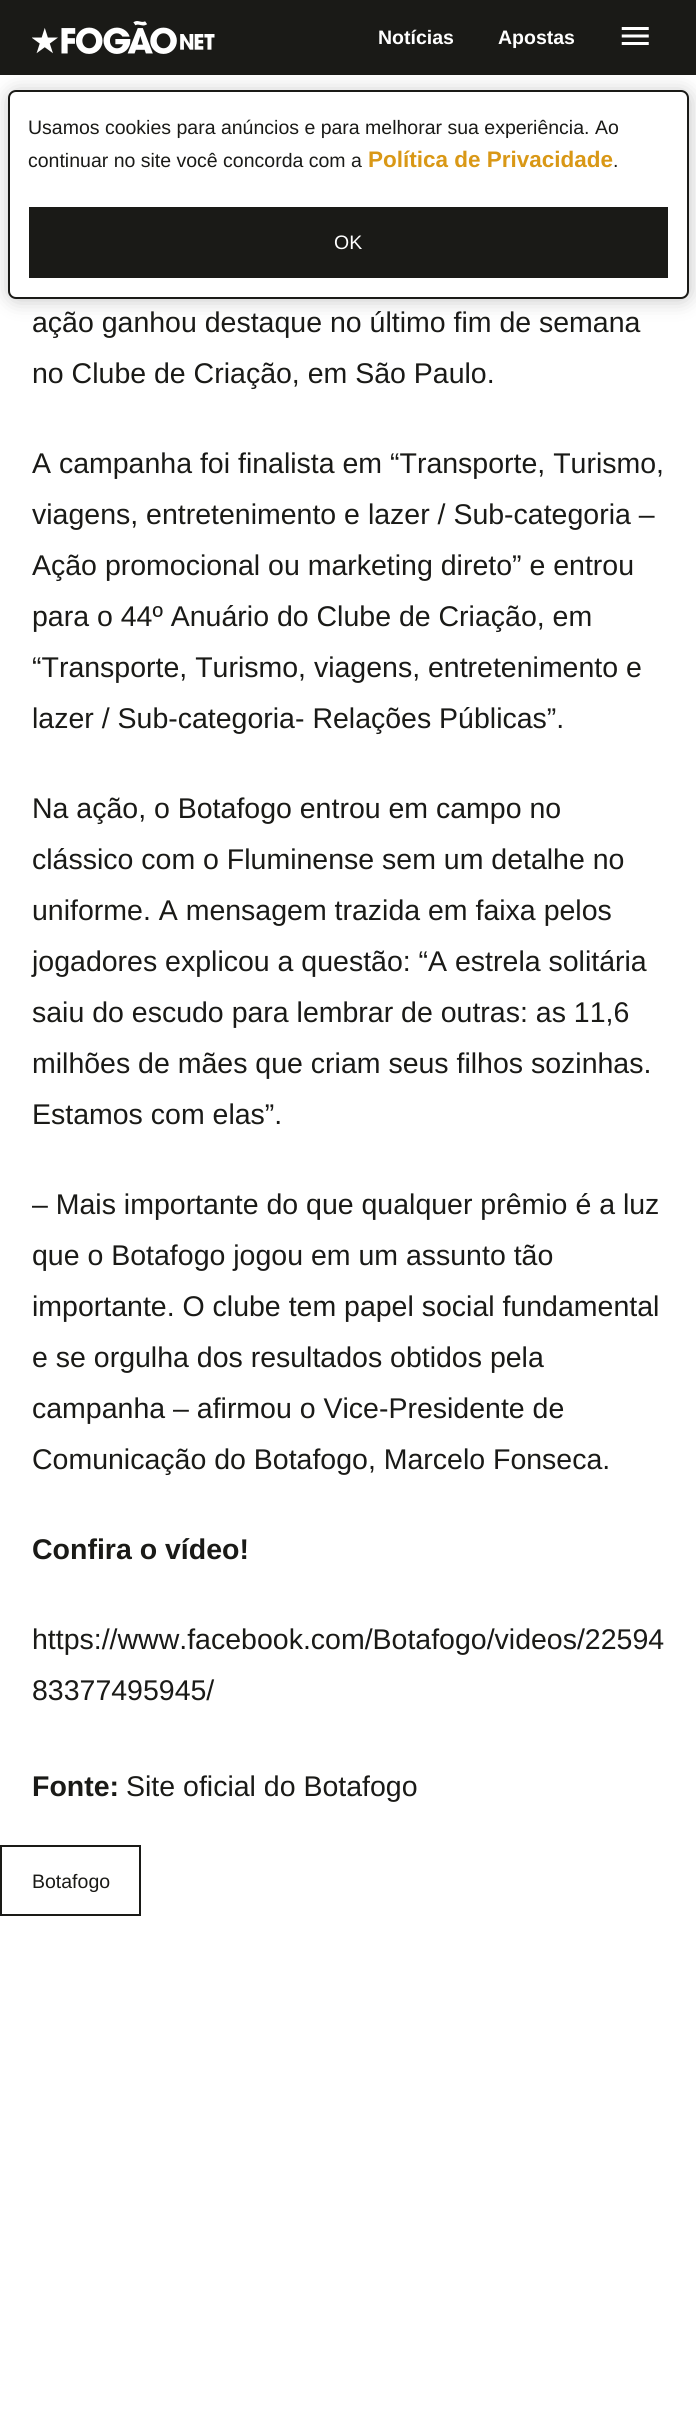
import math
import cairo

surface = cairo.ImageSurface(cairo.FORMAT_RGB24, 696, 2427)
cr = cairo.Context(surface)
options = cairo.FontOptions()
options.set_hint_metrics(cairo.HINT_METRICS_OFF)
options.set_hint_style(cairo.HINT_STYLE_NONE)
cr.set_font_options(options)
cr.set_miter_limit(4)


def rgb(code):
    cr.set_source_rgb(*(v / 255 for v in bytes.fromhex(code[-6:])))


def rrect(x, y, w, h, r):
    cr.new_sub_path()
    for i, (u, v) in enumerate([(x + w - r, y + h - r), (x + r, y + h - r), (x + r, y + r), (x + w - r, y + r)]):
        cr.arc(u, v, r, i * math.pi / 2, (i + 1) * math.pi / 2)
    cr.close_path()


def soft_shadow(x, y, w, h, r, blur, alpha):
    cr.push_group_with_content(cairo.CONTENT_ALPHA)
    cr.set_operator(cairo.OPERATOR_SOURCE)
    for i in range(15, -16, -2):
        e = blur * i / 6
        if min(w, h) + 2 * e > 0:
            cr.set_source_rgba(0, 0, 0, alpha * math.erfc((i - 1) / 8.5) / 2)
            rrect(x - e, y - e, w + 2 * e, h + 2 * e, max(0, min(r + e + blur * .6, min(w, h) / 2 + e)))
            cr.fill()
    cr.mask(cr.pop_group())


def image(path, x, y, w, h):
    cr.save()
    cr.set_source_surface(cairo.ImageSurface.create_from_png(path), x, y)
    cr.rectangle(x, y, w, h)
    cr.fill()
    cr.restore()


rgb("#ffffff")
cr.paint()
rgb("#000000")
soft_shadow(9, 92, 681, 208, 8, 10, 0.23)
rgb("#1a1a17")
cr.rectangle(0, 0, 696, 75)
cr.fill()
image("img/1.png", 32, 21, 183, 33)
image("img/2.png", 621, 27, 28, 18)
rgb("#ffffff")
rrect(9, 91, 679, 207, 7)
cr.fill_preserve()
rgb("#1a1a17")
cr.stroke()
cr.rectangle(29, 207, 639, 71)
cr.fill()
cr.rectangle(1, 1846, 139, 69)
cr.stroke()
cr.select_font_face("Liberation Sans", cairo.FONT_SLANT_NORMAL, cairo.FONT_WEIGHT_BOLD)
cr.set_font_size(19.5)
rgb("#ffffff")
cr.move_to(378, 44)
cr.show_text("Notícias")
cr.move_to(498, 44)
cr.show_text("Apostas")
cr.select_font_face("Liberation Sans")
rgb("#1a1a17")
cr.move_to(28, 134)
cr.show_text("Usamos cookies para anúncios e para melhorar sua experiência. Ao")
cr.move_to(28, 167)
cr.show_text("continuar no site você concorda com a")
cr.select_font_face("Liberation Sans", cairo.FONT_SLANT_NORMAL, cairo.FONT_WEIGHT_BOLD)
cr.set_font_size(22.5)
rgb("#d99816")
cr.move_to(368, 167)
cr.show_text("Política de Privacidade")
cr.select_font_face("Liberation Sans")
cr.set_font_size(19.5)
rgb("#1a1a17")
cr.move_to(613, 167)
cr.show_text(".")
rgb("#ffffff")
cr.move_to(334, 249)
cr.show_text("OK")
cr.set_font_size(28.5)
rgb("#1a1a17")
for x, y, s in [
    (32, 332, "ação ganhou destaque no último fim de semana"),
    (32, 383, "no Clube de Criação, em São Paulo."),
    (32, 473, "A campanha foi finalista em “Transporte, Turismo,"),
    (32, 524, "viagens, entretenimento e lazer / Sub-categoria –"),
    (32, 575, "Ação promocional ou marketing direto” e entrou"),
    (32, 626, "para o 44º Anuário do Clube de Criação, em"),
    (32, 677, "“Transporte, Turismo, viagens, entretenimento e"),
    (32, 728, "lazer / Sub-categoria- Relações Públicas”."),
    (32, 818, "Na ação, o Botafogo entrou em campo no"),
    (32, 869, "clássico com o Fluminense sem um detalhe no"),
    (32, 920, "uniforme. A mensagem trazida em faixa pelos"),
    (32, 971, "jogadores explicou a questão: “A estrela solitária"),
    (32, 1022, "saiu do escudo para lembrar de outras: as 11,6"),
    (32, 1073, "milhões de mães que criam seus filhos sozinhas."),
    (32, 1124, "Estamos com elas”."),
    (32, 1214, "– Mais importante do que qualquer prêmio é a luz"),
    (32, 1265, "que o Botafogo jogou em um assunto tão"),
    (32, 1316, "importante. O clube tem papel social fundamental"),
    (32, 1367, "e se orgulha dos resultados obtidos pela"),
    (32, 1418, "campanha – afirmou o Vice-Presidente de"),
    (32, 1469, "Comunicação do Botafogo, Marcelo Fonseca."),
]:
    cr.move_to(x, y)
    cr.show_text(s)
cr.select_font_face("Liberation Sans", cairo.FONT_SLANT_NORMAL, cairo.FONT_WEIGHT_BOLD)
cr.move_to(32, 1559)
cr.show_text("Confira o vídeo!")
cr.select_font_face("Liberation Sans")
cr.move_to(32, 1649)
cr.show_text("https://www.facebook.com/Botafogo/videos/22594")
cr.move_to(32, 1700)
cr.show_text("83377495945/")
cr.select_font_face("Liberation Sans", cairo.FONT_SLANT_NORMAL, cairo.FONT_WEIGHT_BOLD)
cr.move_to(32, 1796)
cr.show_text("Fonte:")
cr.select_font_face("Liberation Sans")
cr.move_to(126, 1796)
cr.show_text("Site oficial do Botafogo")
cr.set_font_size(19.5)
cr.move_to(32, 1888)
cr.show_text("Botafogo")
surface.write_to_png("page.png")
